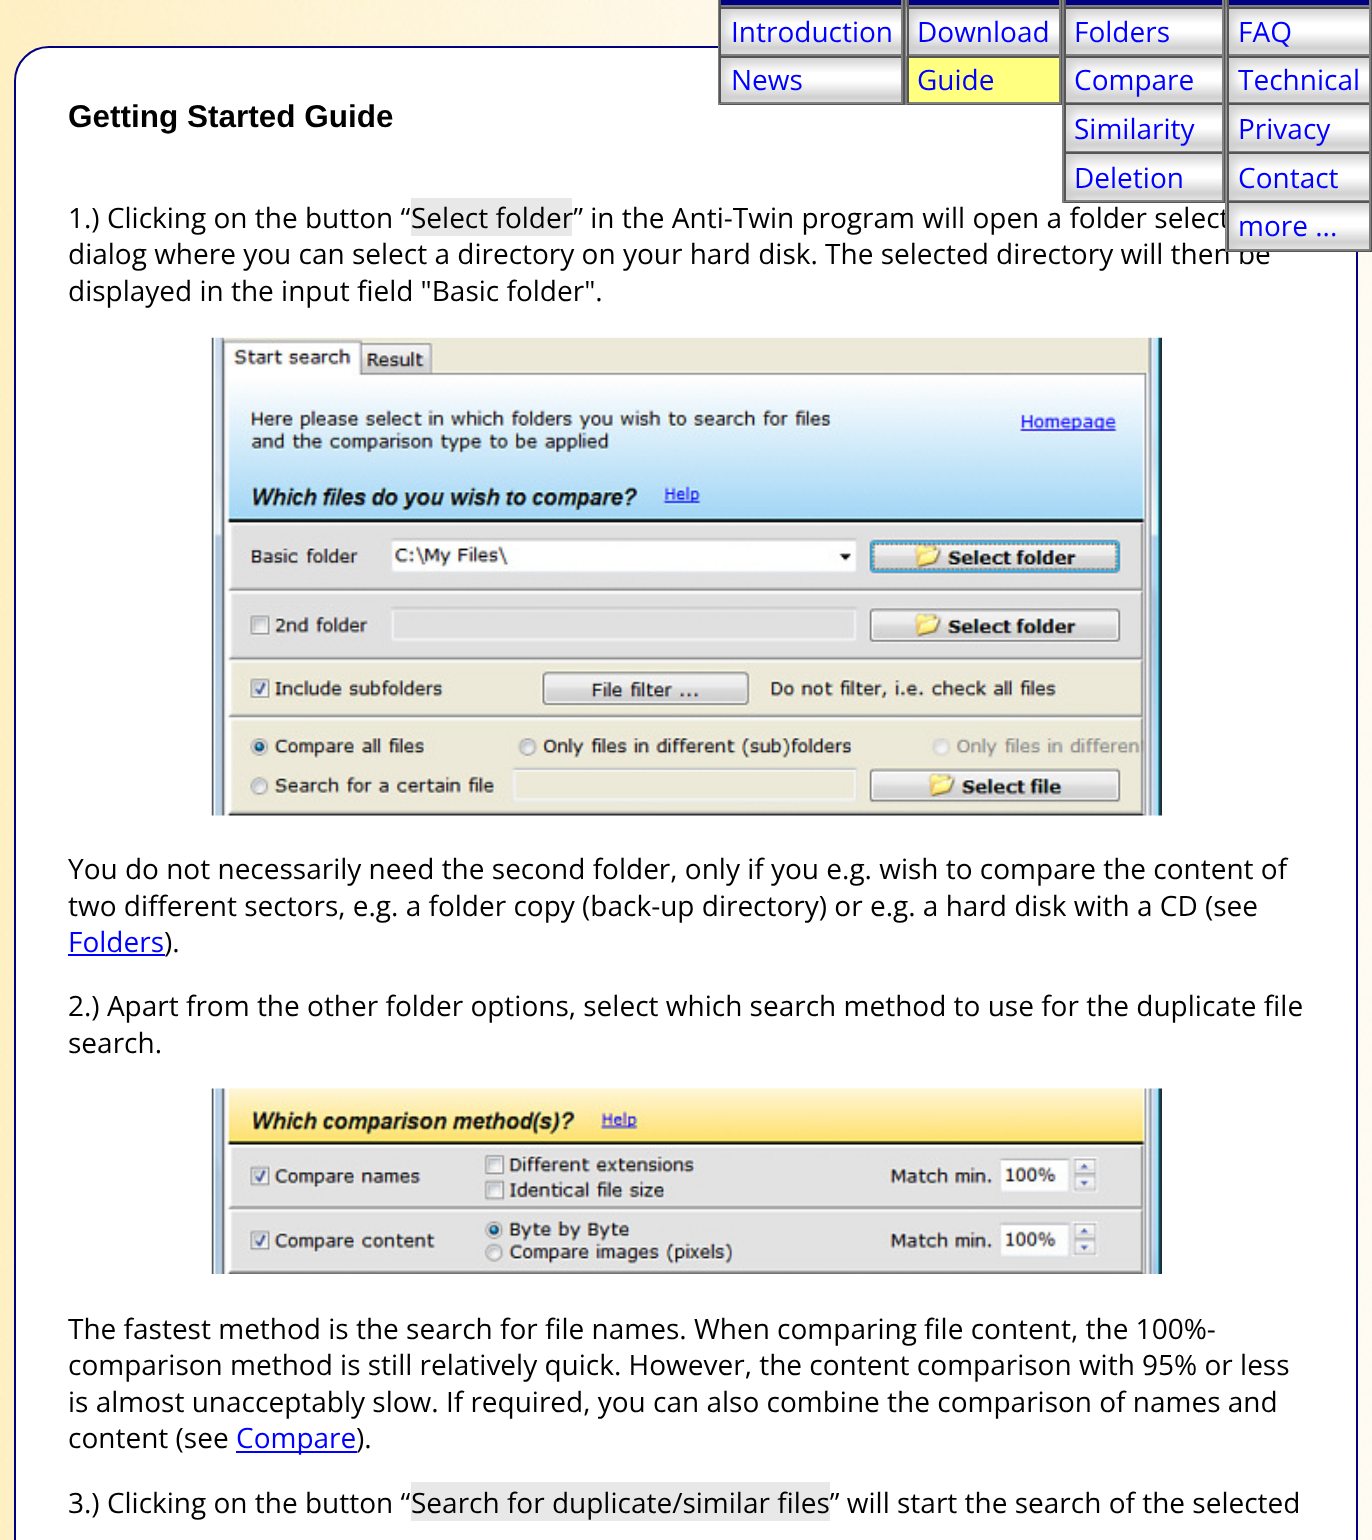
(async () => {
  const canvas = document.querySelector("canvas");
  canvas.width = 1372;
  canvas.height = 1540;
  const ctx = canvas.getContext("2d");
  ctx.miterLimit = 4;
  ctx.fontKerning = "normal";
  async function loadImage(src) {
    const img = new Image();
    img.src = src;
    await img.decode();
    return img;
  }

  ctx.fillStyle = "#ffffff";
  ctx.fillRect(0, 0, 1372, 1540);
  ctx.drawImage(await loadImage("img/1.png"), 0, 0, 1372, 1540);
  ctx.beginPath();
  ctx.roundRect(15, 47, 1342, 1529, 34);
  ctx.fill();
  ctx.strokeStyle = "#000080";
  ctx.lineWidth = 2;
  ctx.stroke();
  for (const [x, y, w, h, color] of [
    [903, 0, 2, 105, "#555555"],
    [718, 103, 187, 2, "#555555"],
    [718, 0, 2, 105, "#808080"],
    [719, 0, 184, 5, "#000080"],
    [901, 0, 2, 7, "#808080"],
    [719, 5, 184, 2, "#808080"],
    [719, 0, 2, 7, "#555555"],
  ]) {
    ctx.fillStyle = color;
    ctx.fillRect(x, y, w, h);
  }
  ctx.drawImage(await loadImage("img/2.png"), 721, 9, 180, 45);
  for (const [x, y, w, h, color] of [
    [719, 7, 184, 2, "#555555"],
    [901, 7, 2, 49, "#808080"],
    [719, 54, 184, 2, "#808080"],
    [719, 7, 2, 49, "#555555"],
  ]) {
    ctx.fillStyle = color;
    ctx.fillRect(x, y, w, h);
  }
  ctx.drawImage(await loadImage("img/3.png"), 721, 58, 180, 44);
  for (const [x, y, w, h, color] of [
    [719, 56, 184, 2, "#555555"],
    [901, 56, 2, 47, "#808080"],
    [719, 102, 184, 2, "#808080"],
    [719, 56, 2, 47, "#555555"],
    [1061, 0, 1, 105, "#555555"],
    [905, 103, 157, 2, "#555555"],
    [905, 0, 2, 105, "#808080"],
    [907, 0, 154, 5, "#000080"],
    [1059, 0, 2, 7, "#808080"],
    [907, 5, 154, 2, "#808080"],
    [907, 0, 2, 7, "#555555"],
  ]) {
    ctx.fillStyle = color;
    ctx.fillRect(x, y, w, h);
  }
  ctx.drawImage(await loadImage("img/4.png"), 906, 7, 153, 49);
  for (const [x, y, w, h, color] of [
    [907, 7, 154, 2, "#555555"],
    [1059, 7, 2, 49, "#808080"],
    [907, 54, 154, 2, "#808080"],
    [907, 7, 2, 49, "#555555"],
    [909, 58, 150, 44, "#ffff80"],
    [907, 56, 154, 2, "#555555"],
    [1059, 56, 2, 47, "#808080"],
    [907, 102, 154, 2, "#808080"],
    [907, 56, 2, 47, "#555555"],
    [1224, 0, 1, 203, "#555555"],
    [1062, 201, 163, 2, "#555555"],
    [1062, 0, 2, 203, "#808080"],
    [1064, 0, 159, 5, "#000080"],
    [1222, 0, 2, 7, "#808080"],
    [1064, 5, 159, 2, "#808080"],
    [1064, 0, 2, 7, "#555555"],
  ]) {
    ctx.fillStyle = color;
    ctx.fillRect(x, y, w, h);
  }
  ctx.drawImage(await loadImage("img/5.png"), 1066, 9, 156, 45);
  for (const [x, y, w, h, color] of [
    [1064, 7, 159, 2, "#555555"],
    [1222, 7, 2, 49, "#808080"],
    [1064, 54, 159, 2, "#808080"],
    [1064, 7, 2, 49, "#555555"],
  ]) {
    ctx.fillStyle = color;
    ctx.fillRect(x, y, w, h);
  }
  ctx.drawImage(await loadImage("img/6.png"), 1066, 58, 156, 44);
  for (const [x, y, w, h, color] of [
    [1064, 56, 159, 2, "#555555"],
    [1222, 56, 2, 47, "#808080"],
    [1064, 102, 159, 1, "#808080"],
    [1064, 56, 2, 47, "#555555"],
  ]) {
    ctx.fillStyle = color;
    ctx.fillRect(x, y, w, h);
  }
  ctx.drawImage(await loadImage("img/7.png"), 1066, 105, 156, 46);
  for (const [x, y, w, h, color] of [
    [1064, 103, 159, 2, "#555555"],
    [1222, 103, 2, 49, "#808080"],
    [1064, 151, 159, 1, "#808080"],
    [1064, 103, 2, 49, "#555555"],
  ]) {
    ctx.fillStyle = color;
    ctx.fillRect(x, y, w, h);
  }
  ctx.drawImage(await loadImage("img/8.png"), 1066, 154, 158, 48);
  for (const [x, y, w, h, color] of [
    [1064, 152, 159, 2, "#555555"],
    [1222, 152, 2, 49, "#808080"],
    [1064, 200, 159, 2, "#808080"],
    [1064, 152, 2, 49, "#555555"],
    [1371, 0, 1, 252, "#555555"],
    [1227, 0, 143, 5, "#000080"],
    [1369, 0, 2, 7, "#808080"],
    [1227, 5, 143, 2, "#808080"],
    [1227, 0, 2, 7, "#555555"],
    [411, 198, 161, 38, "#e8e8e8"],
  ]) {
    ctx.fillStyle = color;
    ctx.fillRect(x, y, w, h);
  }
  ctx.drawImage(await loadImage("img/13.png"), 211, 337, 951, 479);
  ctx.fillStyle = "#0000ff";
  ctx.fillRect(68, 954, 97, 2);
  ctx.drawImage(await loadImage("img/14.png"), 211, 1088, 951, 186);
  ctx.fillRect(236, 1451, 121, 2);
  ctx.fillStyle = "#e8e8e8";
  ctx.fillRect(411, 1482, 419, 39);
  ctx.font = "28px Open Sans";
  ctx.fillStyle = "#0000ff";
  for (const [text, x, y] of [
    ["Introduction", 731, 42],
    ["News", 731, 90],
    ["Download", 917, 42],
    ["Guide", 917, 90],
    ["Folders", 1074, 42],
    ["Compare", 1074, 90],
    ["Similarity", 1074, 139],
    ["Deletion", 1074, 188],
  ]) {
    ctx.fillText(text, x, y);
  }
  ctx.font = "bold 31.5px Liberation Sans";
  ctx.fillStyle = "#000000";
  ctx.fillText("Getting Started Guide", 68, 127);
  ctx.font = "28px Open Sans";
  for (const [text, x, y] of [
    ["1.) Clicking on the button “", 68, 228],
    ["Select folder” in the Anti-Twin program will open a folder select", 411, 228],
    ["dialog where you can select a directory on your hard disk. The selected directory will then be", 68, 264],
  ]) {
    ctx.fillText(text, x, y);
  }
  ctx.fillStyle = "#555555";
  ctx.fillRect(1225, 250, 147, 2);
  ctx.fillStyle = "#808080";
  ctx.fillRect(1225, 0, 2, 252);
  ctx.drawImage(await loadImage("img/10.png"), 1226, 56, 143, 48);
  ctx.drawImage(await loadImage("img/11.png"), 1226, 103, 143, 50);
  ctx.drawImage(await loadImage("img/11.png"), 1226, 152, 143, 50);
  ctx.drawImage(await loadImage("img/12.png"), 1226, 201, 145, 50);
  ctx.fillStyle = "#0000ff";
  for (const [text, x, y] of [
    ["more ...", 1238, 236],
    ["Contact", 1238, 188],
    ["Privacy", 1238, 139],
    ["Technical", 1238, 90],
  ]) {
    ctx.fillText(text, x, y);
  }
  ctx.drawImage(await loadImage("img/9.png"), 1226, 7, 143, 49);
  ctx.fillText("FAQ", 1238, 42);
  for (const [x, y, w, h, color] of [
    [1227, 201, 143, 2, "#555555"],
    [1369, 201, 2, 49, "#808080"],
    [1227, 249, 143, 2, "#808080"],
    [1227, 201, 2, 49, "#555555"],
    [1227, 152, 143, 2, "#555555"],
    [1369, 152, 2, 49, "#808080"],
    [1227, 200, 143, 1, "#808080"],
    [1227, 152, 2, 49, "#555555"],
    [1227, 103, 143, 2, "#555555"],
    [1369, 103, 2, 49, "#808080"],
    [1227, 151, 143, 1, "#808080"],
    [1227, 103, 2, 49, "#555555"],
    [1227, 56, 143, 2, "#555555"],
    [1369, 56, 2, 47, "#808080"],
    [1227, 102, 143, 1, "#808080"],
    [1227, 56, 2, 47, "#555555"],
    [1227, 7, 143, 2, "#555555"],
    [1369, 7, 2, 49, "#808080"],
    [1227, 54, 143, 2, "#808080"],
    [1227, 7, 2, 49, "#555555"],
  ]) {
    ctx.fillStyle = color;
    ctx.fillRect(x, y, w, h);
  }
  ctx.fillStyle = "#000000";
  for (const [text, x, y] of [
    ["displayed in the input field \"Basic folder\".", 68, 301],
    ["You do not necessarily need the second folder, only if you e.g. wish to compare the content of", 68, 879],
    ["two different sectors, e.g. a folder copy (back-up directory) or e.g. a hard disk with a CD (see", 68, 916],
  ]) {
    ctx.fillText(text, x, y);
  }
  ctx.fillStyle = "#0000ff";
  ctx.fillText("Folders", 68, 952);
  ctx.fillStyle = "#000000";
  for (const [text, x, y] of [
    [").", 164, 952],
    ["2.) Apart from the other folder options, select which search method to use for the duplicate file", 68, 1016],
    ["search.", 68, 1053],
    ["The fastest method is the search for file names. When comparing file content, the 100%-", 68, 1339],
    ["comparison method is still relatively quick. However, the content comparison with 95% or less", 68, 1375],
    ["is almost unacceptably slow. If required, you can also combine the comparison of names and", 68, 1412],
    ["content (see", 68, 1448],
  ]) {
    ctx.fillText(text, x, y);
  }
  ctx.fillStyle = "#0000ff";
  ctx.fillText("Compare", 236, 1448);
  ctx.fillStyle = "#000000";
  for (const [text, x, y] of [
    [").", 356, 1448],
    ["3.) Clicking on the button “", 68, 1513],
    ["Search for duplicate/similar files” will start the search of the selected", 411, 1513],
  ]) {
    ctx.fillText(text, x, y);
  }
})();
